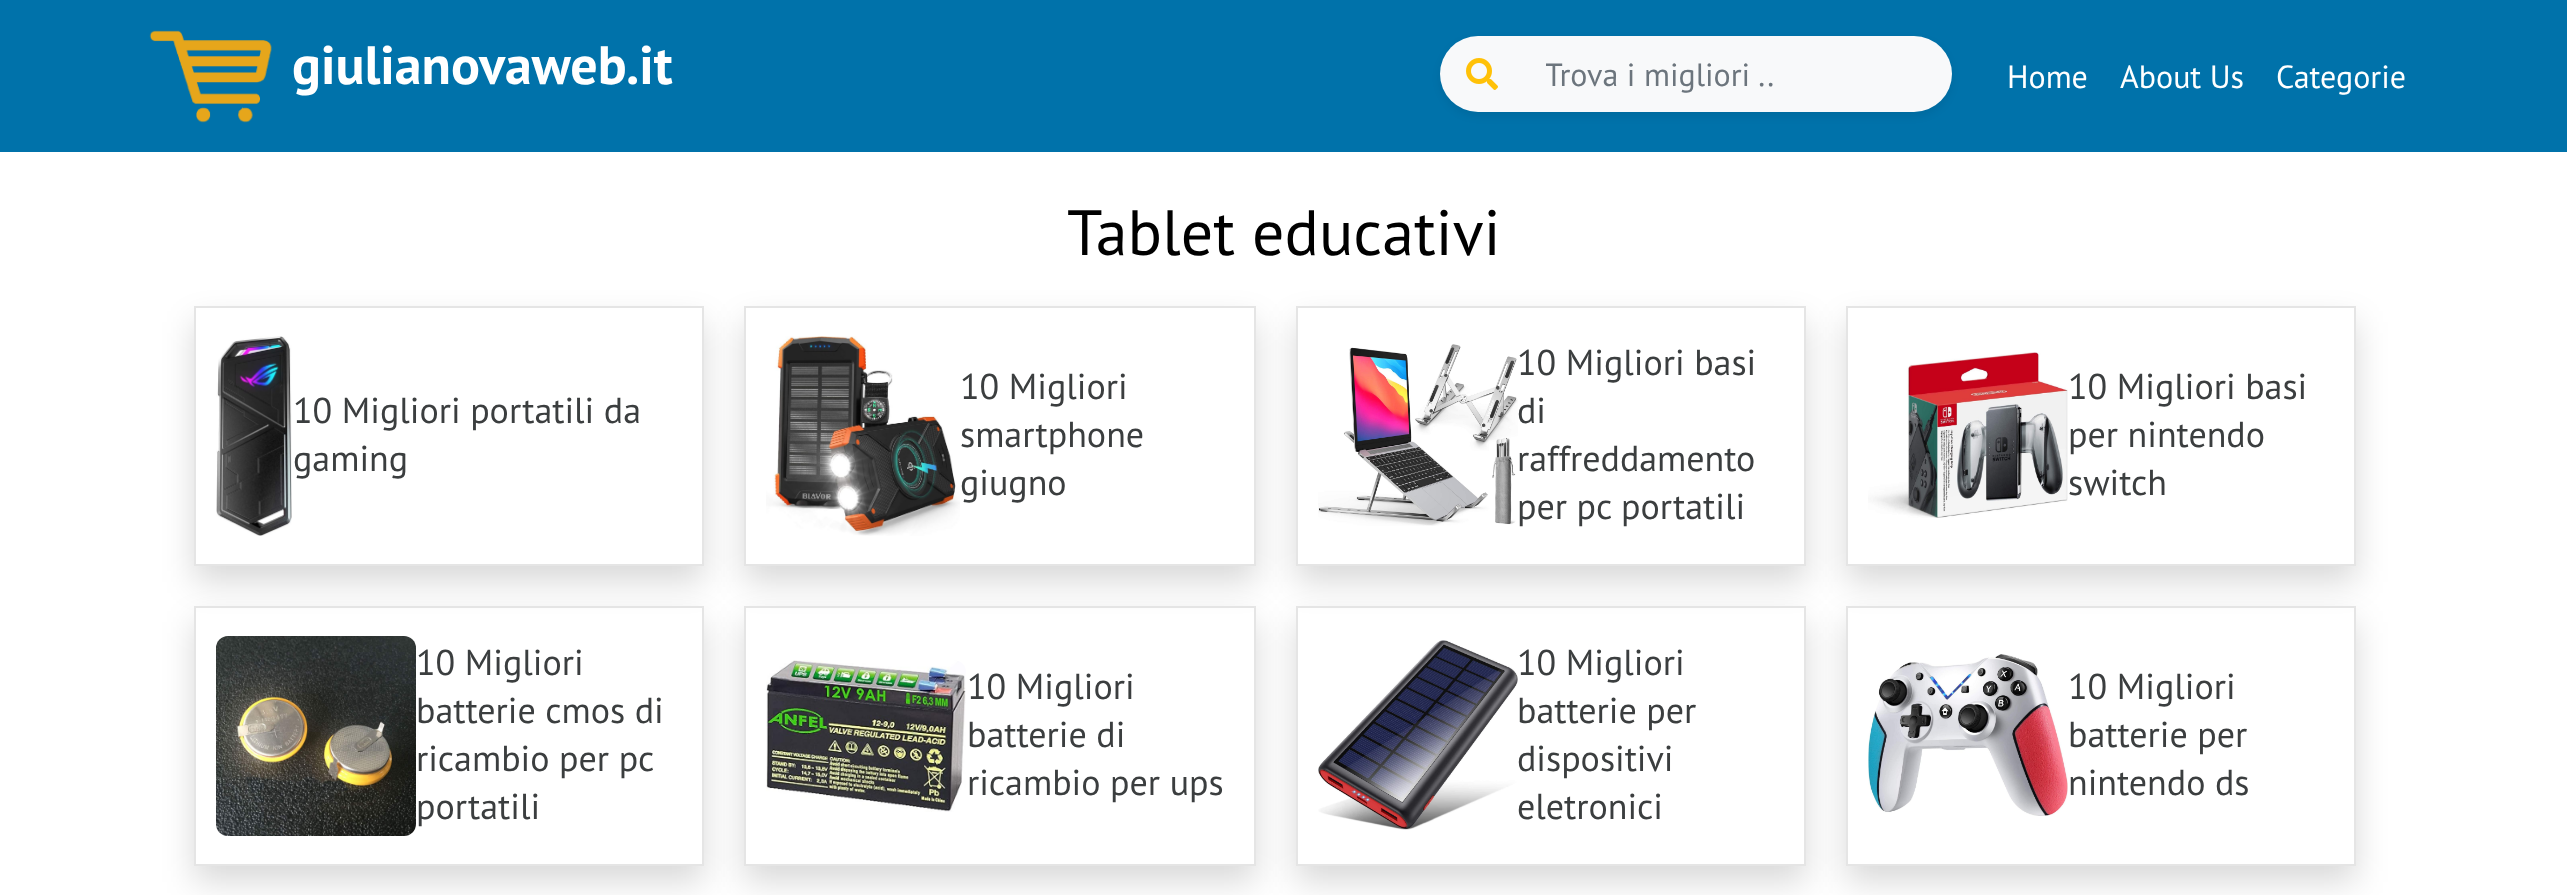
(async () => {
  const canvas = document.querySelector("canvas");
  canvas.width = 2567;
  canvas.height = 895;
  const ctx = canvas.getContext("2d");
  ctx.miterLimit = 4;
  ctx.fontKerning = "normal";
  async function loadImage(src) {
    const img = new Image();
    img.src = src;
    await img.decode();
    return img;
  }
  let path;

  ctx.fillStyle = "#ffffff";
  ctx.fillRect(0, 0, 2567, 895);
  ctx.fillStyle = "#0072aa";
  ctx.fillRect(0, 0, 2567, 152);
  ctx.drawImage(await loadImage("img/1.png"), 149, 30, 123, 93);
  ctx.fillStyle = "rgba(0, 0, 0, 0.07)";
  ctx.filter = "blur(4px)";
  ctx.beginPath();
  ctx.roundRect(1440, 40, 512, 76, 38);
  ctx.fill();
  ctx.filter = "none";
  ctx.fillStyle = "#f8f9fa";
  ctx.beginPath();
  ctx.roundRect(1440, 36, 512, 76, 38);
  ctx.fill();
  ctx.drawImage(await loadImage("img/2.png"), 1466, 58, 32, 32);
  ctx.save();
  path = new Path2D("M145 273H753V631H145ZM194 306H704V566H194Z");
  ctx.clip(path, "evenodd");
  ctx.fillStyle = "rgba(0, 0, 0, 0.15)";
  ctx.filter = "blur(16px)";
  ctx.beginPath();
  ctx.rect(194, 322, 510, 260);
  ctx.fill();
  ctx.filter = "none";
  ctx.restore();
  ctx.strokeStyle = "#e5e5e5";
  ctx.lineWidth = 2;
  ctx.strokeRect(195, 307, 508, 258);
  ctx.drawImage(await loadImage("img/3.png"), 216, 336, 76, 200);
  ctx.save();
  path = new Path2D("M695 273H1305V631H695ZM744 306H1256V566H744Z");
  ctx.clip(path, "evenodd");
  ctx.fillStyle = "rgba(0, 0, 0, 0.15)";
  ctx.filter = "blur(16px)";
  ctx.beginPath();
  ctx.rect(744, 322, 512, 260);
  ctx.fill();
  ctx.filter = "none";
  ctx.restore();
  ctx.strokeRect(745, 307, 510, 258);
  ctx.drawImage(await loadImage("img/4.png"), 766, 336, 194, 200);
  ctx.save();
  path = new Path2D("M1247 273H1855V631H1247ZM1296 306H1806V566H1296Z");
  ctx.clip(path, "evenodd");
  ctx.fillStyle = "rgba(0, 0, 0, 0.15)";
  ctx.filter = "blur(16px)";
  ctx.beginPath();
  ctx.rect(1296, 322, 510, 260);
  ctx.fill();
  ctx.filter = "none";
  ctx.restore();
  ctx.strokeRect(1297, 307, 508, 258);
  ctx.drawImage(await loadImage("img/5.png"), 1318, 344, 200, 182);
  ctx.save();
  path = new Path2D("M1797 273H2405V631H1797ZM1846 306H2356V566H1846Z");
  ctx.clip(path, "evenodd");
  ctx.fillStyle = "rgba(0, 0, 0, 0.15)";
  ctx.filter = "blur(16px)";
  ctx.beginPath();
  ctx.rect(1846, 322, 510, 260);
  ctx.fill();
  ctx.filter = "none";
  ctx.restore();
  ctx.strokeRect(1847, 307, 508, 258);
  ctx.drawImage(await loadImage("img/6.png"), 1868, 352, 200, 166);
  ctx.save();
  path = new Path2D("M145 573H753V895H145ZM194 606H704V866H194Z");
  ctx.clip(path, "evenodd");
  ctx.fillStyle = "rgba(0, 0, 0, 0.15)";
  ctx.filter = "blur(16px)";
  ctx.beginPath();
  ctx.rect(194, 622, 510, 260);
  ctx.fill();
  ctx.filter = "none";
  ctx.restore();
  ctx.strokeRect(195, 607, 508, 258);
  ctx.drawImage(await loadImage("img/7.png"), 216, 636, 200, 200);
  ctx.save();
  path = new Path2D("M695 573H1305V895H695ZM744 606H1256V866H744Z");
  ctx.clip(path, "evenodd");
  ctx.fillStyle = "rgba(0, 0, 0, 0.15)";
  ctx.filter = "blur(16px)";
  ctx.beginPath();
  ctx.rect(744, 622, 512, 260);
  ctx.fill();
  ctx.filter = "none";
  ctx.restore();
  ctx.strokeRect(745, 607, 510, 258);
  ctx.drawImage(await loadImage("img/8.png"), 766, 660, 200, 152);
  ctx.save();
  path = new Path2D("M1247 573H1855V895H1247ZM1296 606H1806V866H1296Z");
  ctx.clip(path, "evenodd");
  ctx.fillStyle = "rgba(0, 0, 0, 0.15)";
  ctx.filter = "blur(16px)";
  ctx.beginPath();
  ctx.rect(1296, 622, 510, 260);
  ctx.fill();
  ctx.filter = "none";
  ctx.restore();
  ctx.strokeRect(1297, 607, 508, 258);
  ctx.drawImage(await loadImage("img/9.png"), 1318, 640, 200, 190);
  ctx.save();
  path = new Path2D("M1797 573H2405V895H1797ZM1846 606H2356V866H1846Z");
  ctx.clip(path, "evenodd");
  ctx.fillStyle = "rgba(0, 0, 0, 0.15)";
  ctx.filter = "blur(16px)";
  ctx.beginPath();
  ctx.rect(1846, 622, 510, 260);
  ctx.fill();
  ctx.filter = "none";
  ctx.restore();
  ctx.strokeRect(1847, 607, 508, 258);
  ctx.drawImage(await loadImage("img/10.png"), 1868, 654, 200, 162);
  ctx.font = "bold 54px PT Sans";
  ctx.fillStyle = "#ffffff";
  ctx.fillText("giulianovaweb.it", 292, 84);
  ctx.save();
  ctx.beginPath();
  ctx.rect(1546, 54, 312, 40);
  ctx.clip();
  ctx.font = "32px PT Sans";
  ctx.fillStyle = "#6c757d";
  ctx.fillText("Trova i migliori ..", 1545, 86);
  ctx.restore();
  ctx.font = "32px PT Sans";
  for (const [text, x, y] of [
    ["Home", 2007, 88],
    ["About Us", 2120, 88],
    ["Categorie", 2276, 88],
  ]) {
    ctx.fillText(text, x, y);
  }
  ctx.font = "64px PT Sans";
  ctx.fillStyle = "#000000";
  ctx.fillText("Tablet educativi", 1067, 255);
  ctx.font = "36px PT Sans";
  ctx.fillStyle = "#3b3e3f";
  for (const [text, x, y] of [
    ["10 Migliori portatili da", 293, 423],
    ["gaming", 293, 471],
    ["10 Migliori", 960, 399],
    ["smartphone", 960, 447],
    ["giugno", 960, 495],
    ["10 Migliori basi", 1517, 375],
    ["di", 1517, 423],
    ["raffreddamento", 1517, 471],
    ["per pc portatili", 1517, 519],
    ["10 Migliori basi", 2068, 399],
    ["per nintendo", 2068, 447],
    ["switch", 2068, 495],
    ["10 Migliori", 416, 675],
    ["batterie cmos di", 416, 723],
    ["ricambio per pc", 416, 771],
    ["portatili", 416, 819],
    ["10 Migliori", 967, 699],
    ["batterie di", 967, 747],
    ["ricambio per ups", 967, 795],
    ["10 Migliori", 1517, 675],
    ["batterie per", 1517, 723],
    ["dispositivi", 1517, 771],
    ["eletronici", 1517, 819],
    ["10 Migliori", 2068, 699],
    ["batterie per", 2068, 747],
    ["nintendo ds", 2068, 795],
  ]) {
    ctx.fillText(text, x, y);
  }
})();
